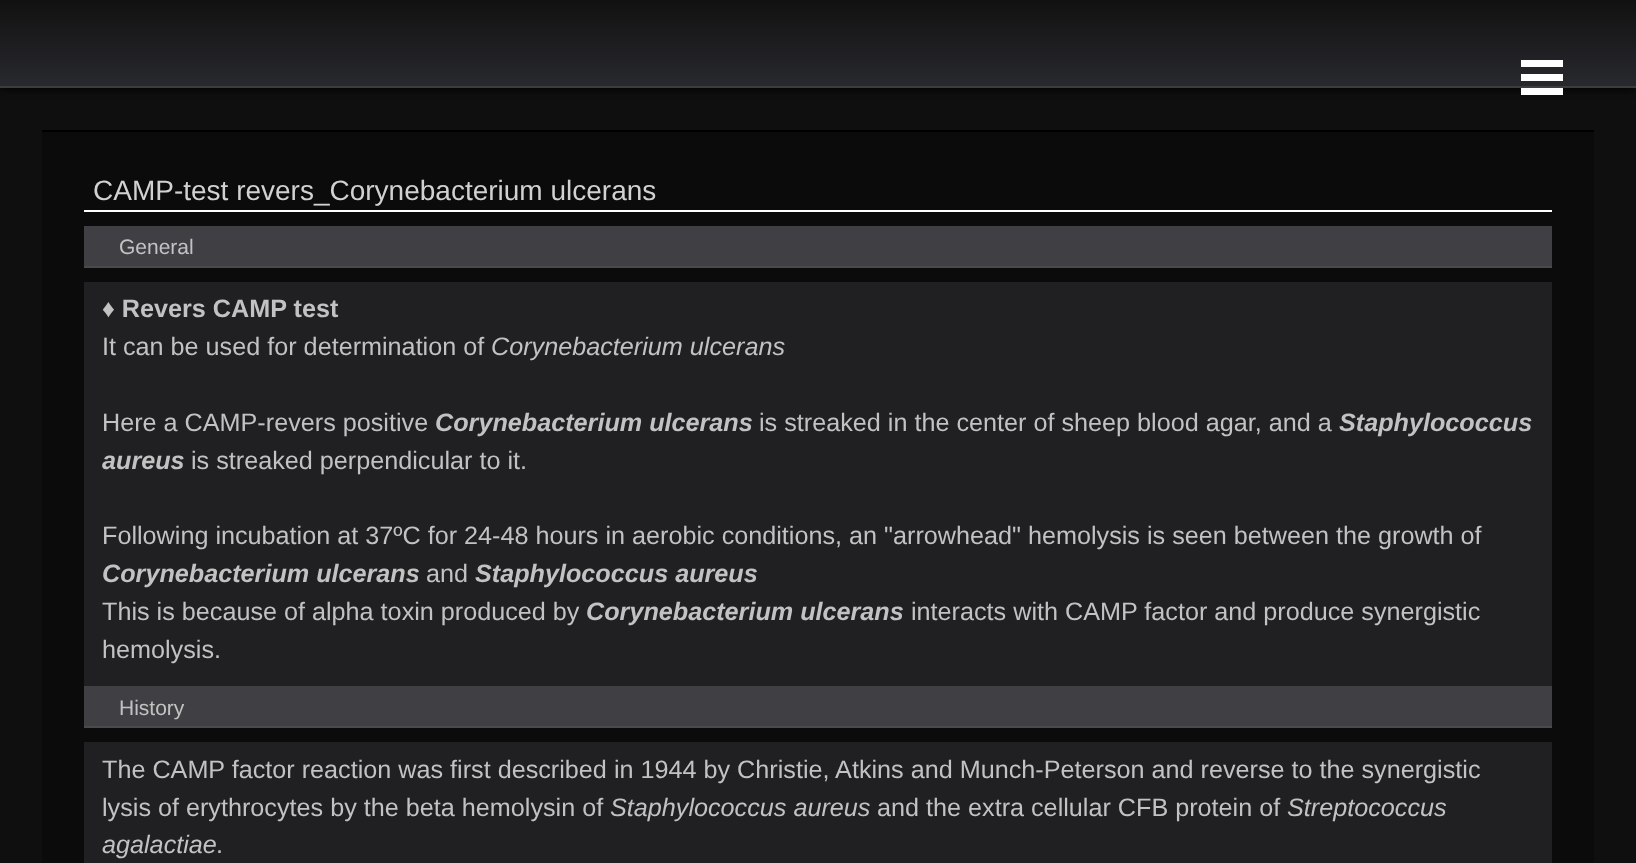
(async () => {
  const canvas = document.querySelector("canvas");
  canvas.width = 1636;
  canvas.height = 863;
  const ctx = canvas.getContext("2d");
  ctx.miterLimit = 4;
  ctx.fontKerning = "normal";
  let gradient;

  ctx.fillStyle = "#0f0f0f";
  ctx.fillRect(0, 0, 1636, 863);
  ctx.fillStyle = "#000000";
  ctx.filter = "blur(4.5px)";
  ctx.beginPath();
  ctx.rect(0, 2, 1636, 87);
  ctx.fill();
  ctx.filter = "none";
  gradient = ctx.createLinearGradient(818, 0, 818, 86);
  gradient.addColorStop(0, "#111111");
  gradient.addColorStop(1, "#28292e");
  ctx.fillStyle = gradient;
  ctx.fillRect(0, 0, 1636, 86);
  for (const [x, y, w, h, color] of [
    [0, 86, 1636, 2, "#3d3d3d"],
    [1521, 74, 42, 7, "#ffffff"],
    [1521, 60, 42, 7, "#ffffff"],
    [1521, 88, 42, 7, "#ffffff"],
    [42, 132, 1552, 731, "#0b0b0b"],
    [42, 130, 1552, 2, "#000000"],
    [84, 210, 1468, 2, "#ffffff"],
    [84, 226, 1468, 40, "#404044"],
    [84, 266, 1468, 2, "#4a4a4d"],
    [84, 282, 1468, 404, "#202022"],
    [84, 686, 1468, 40, "#404044"],
    [84, 726, 1468, 2, "#4a4a4d"],
    [84, 742, 1468, 121, "#202022"],
  ]) {
    ctx.fillStyle = color;
    ctx.fillRect(x, y, w, h);
  }
  ctx.font = "28px Liberation Sans";
  ctx.fillStyle = "#d1d1d1";
  ctx.fillText("CAMP-test revers_Corynebacterium ulcerans", 93, 200);
  ctx.font = "21px Liberation Sans";
  ctx.fillStyle = "#c2c2c2";
  ctx.fillText("General", 119, 254);
  ctx.font = "bold 25.2px Liberation Sans";
  ctx.fillText("♦ Revers CAMP test", 102, 317);
  ctx.font = "25.2px Liberation Sans";
  ctx.fillText("It can be used for determination of", 102, 355);
  ctx.font = "italic 25.2px Liberation Sans";
  ctx.fillText("Corynebacterium ulcerans", 491, 355);
  ctx.font = "25.2px Liberation Sans";
  ctx.fillText("Here a CAMP-revers positive", 102, 431);
  ctx.font = "italic bold 25.2px Liberation Sans";
  ctx.fillText("Corynebacterium ulcerans", 435, 431);
  ctx.font = "25.2px Liberation Sans";
  ctx.fillText("is streaked in the center of sheep blood agar, and a", 759, 431);
  ctx.font = "italic bold 25.2px Liberation Sans";
  ctx.fillText("Staphylococcus", 1339, 431);
  ctx.fillText("aureus", 102, 469);
  ctx.font = "25.2px Liberation Sans";
  ctx.fillText("is streaked perpendicular to it.", 191, 469);
  ctx.fillText("Following incubation at 37ºC for 24-48 hours in aerobic conditions, an \"arrowhead\" hemolysis is seen between the growth of", 102, 544);
  ctx.font = "italic bold 25.2px Liberation Sans";
  ctx.fillText("Corynebacterium ulcerans", 102, 582);
  ctx.font = "25.2px Liberation Sans";
  ctx.fillText("and", 426, 582);
  ctx.font = "italic bold 25.2px Liberation Sans";
  ctx.fillText("Staphylococcus aureus", 475, 582);
  ctx.font = "25.2px Liberation Sans";
  ctx.fillText("This is because of alpha toxin produced by", 102, 620);
  ctx.font = "italic bold 25.2px Liberation Sans";
  ctx.fillText("Corynebacterium ulcerans", 586, 620);
  ctx.font = "25.2px Liberation Sans";
  ctx.fillText("interacts with CAMP factor and produce synergistic", 911, 620);
  ctx.fillText("hemolysis.", 102, 658);
  ctx.font = "21px Liberation Sans";
  ctx.fillText("History", 119, 715);
  ctx.font = "25.2px Liberation Sans";
  ctx.fillText("The CAMP factor reaction was first described in 1944 by Christie, Atkins and Munch-Peterson and reverse to the synergistic", 102, 778);
  ctx.fillText("lysis of erythrocytes by the beta hemolysin of", 102, 816);
  ctx.font = "italic 25.2px Liberation Sans";
  ctx.fillText("Staphylococcus aureus", 610, 816);
  ctx.font = "25.2px Liberation Sans";
  ctx.fillText("and the extra cellular CFB protein of", 877, 816);
  ctx.font = "italic 25.2px Liberation Sans";
  ctx.fillText("Streptococcus", 1287, 816);
  ctx.fillText("agalactiae", 102, 853);
  ctx.font = "25.2px Liberation Sans";
  ctx.fillText(".", 216, 853);
})();
